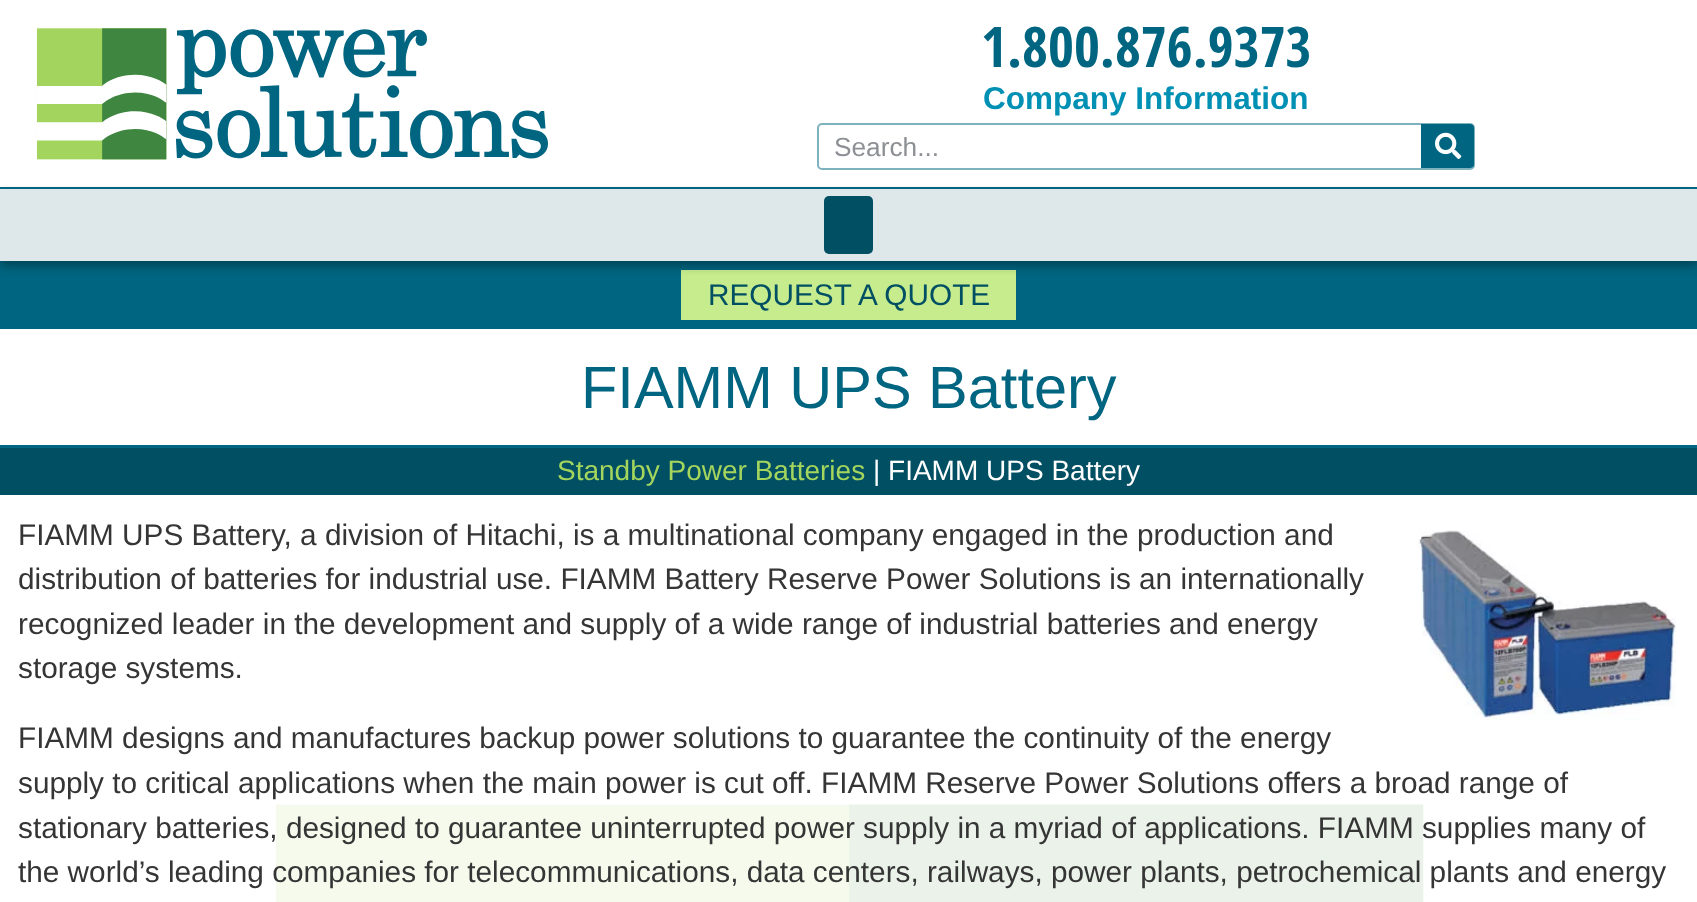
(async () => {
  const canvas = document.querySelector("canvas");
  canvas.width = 1697;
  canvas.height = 902;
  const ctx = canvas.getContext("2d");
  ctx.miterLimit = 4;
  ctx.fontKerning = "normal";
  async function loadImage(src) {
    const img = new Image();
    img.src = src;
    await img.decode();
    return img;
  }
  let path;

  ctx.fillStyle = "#ffffff";
  ctx.fillRect(0, 0, 1697, 902);
  ctx.drawImage(await loadImage("img/1.png"), 36, 28, 512, 132);
  ctx.beginPath();
  ctx.roundRect(818, 124, 656, 45, 4);
  ctx.strokeStyle = "#7fb2bf";
  ctx.lineWidth = 2;
  ctx.stroke();
  ctx.fillStyle = "#006580";
  ctx.beginPath();
  ctx.roundRect(1421, 124, 53, 44, [0, 4, 4, 0]);
  ctx.fill();
  ctx.drawImage(await loadImage("img/2.png"), 1435, 132, 27, 27);
  ctx.fillStyle = "rgba(0, 0, 0, 0.32)";
  ctx.filter = "blur(5px)";
  ctx.beginPath();
  ctx.rect(0, 266, 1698, 68);
  ctx.fill();
  ctx.filter = "none";
  ctx.fillStyle = "#006580";
  ctx.fillRect(0, 261, 1697, 68);
  ctx.fillStyle = "#c6ec8d";
  ctx.fillRect(681, 270, 335, 50);
  ctx.save();
  path = new Path2D("M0 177H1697V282H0ZM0 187H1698V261H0Z");
  ctx.clip(path, "evenodd");
  ctx.fillStyle = "rgba(0, 0, 0, 0.32)";
  ctx.filter = "blur(5px)";
  ctx.beginPath();
  ctx.rect(0, 193, 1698, 73);
  ctx.fill();
  ctx.filter = "none";
  ctx.restore();
  ctx.fillStyle = "rgba(219, 229, 231, 0.93)";
  ctx.fillRect(0, 189, 1697, 72);
  ctx.fillStyle = "#006580";
  ctx.fillRect(0, 187, 1697, 2);
  ctx.fillStyle = "#004f63";
  ctx.beginPath();
  ctx.roundRect(824, 196, 49, 58, 5);
  ctx.fill();
  for (const [x, y, w, h, color] of [
    [0, 329, 1697, 14, "#ffffff"],
    [0, 445, 1697, 3, "#006580"],
    [0, 448, 1697, 47, "#004f63"],
  ]) {
    ctx.fillStyle = color;
    ctx.fillRect(x, y, w, h);
  }
  ctx.drawImage(await loadImage("img/3.png"), 276, 804, 1148, 98);
  ctx.drawImage(await loadImage("img/4.png"), 1417, 530, 259, 190);
  ctx.font = "bold 56px Open Sans Condensed";
  ctx.fillStyle = "#006580";
  ctx.fillText("1.800.876.9373", 981, 67);
  ctx.font = "bold 31.5px Liberation Sans";
  ctx.fillStyle = "#0090b4";
  ctx.fillText("Company Information", 983, 109);
  ctx.font = "26.25px Liberation Sans";
  ctx.fillStyle = "#8c8f93";
  ctx.fillText("Search...", 834, 156);
  ctx.font = "29.75px Liberation Sans";
  ctx.fillStyle = "#004f63";
  ctx.fillText("REQUEST A QUOTE", 708, 305);
  ctx.font = "59.5px Liberation Sans";
  ctx.fillStyle = "#006580";
  ctx.fillText("FIAMM UPS Battery", 581, 408);
  ctx.font = "28px Liberation Sans";
  ctx.fillStyle = "#a4d55d";
  ctx.fillText("Standby Power Batteries", 557, 480);
  ctx.fillStyle = "#ffffff";
  ctx.fillText("| FIAMM UPS Battery", 873, 480);
  ctx.font = "29.75px Liberation Sans";
  ctx.fillStyle = "#353535";
  for (const [text, x, y] of [
    ["FIAMM UPS Battery, a division of Hitachi, is a multinational company engaged in the production and", 18, 545],
    ["distribution of batteries for industrial use. FIAMM Battery Reserve Power Solutions is an internationally", 18, 589],
    ["recognized leader in the development and supply of a wide range of industrial batteries and energy", 18, 634],
    ["storage systems.", 18, 678],
    ["FIAMM designs and manufactures backup power solutions to guarantee the continuity of the energy", 18, 748],
    ["supply to critical applications when the main power is cut off. FIAMM Reserve Power Solutions offers a broad range of", 18, 793],
    ["stationary batteries, designed to guarantee uninterrupted power supply in a myriad of applications. FIAMM supplies many of", 18, 838],
    ["the world’s leading companies for telecommunications, data centers, railways, power plants, petrochemical plants and energy", 18, 882],
  ]) {
    ctx.fillText(text, x, y);
  }
})();
